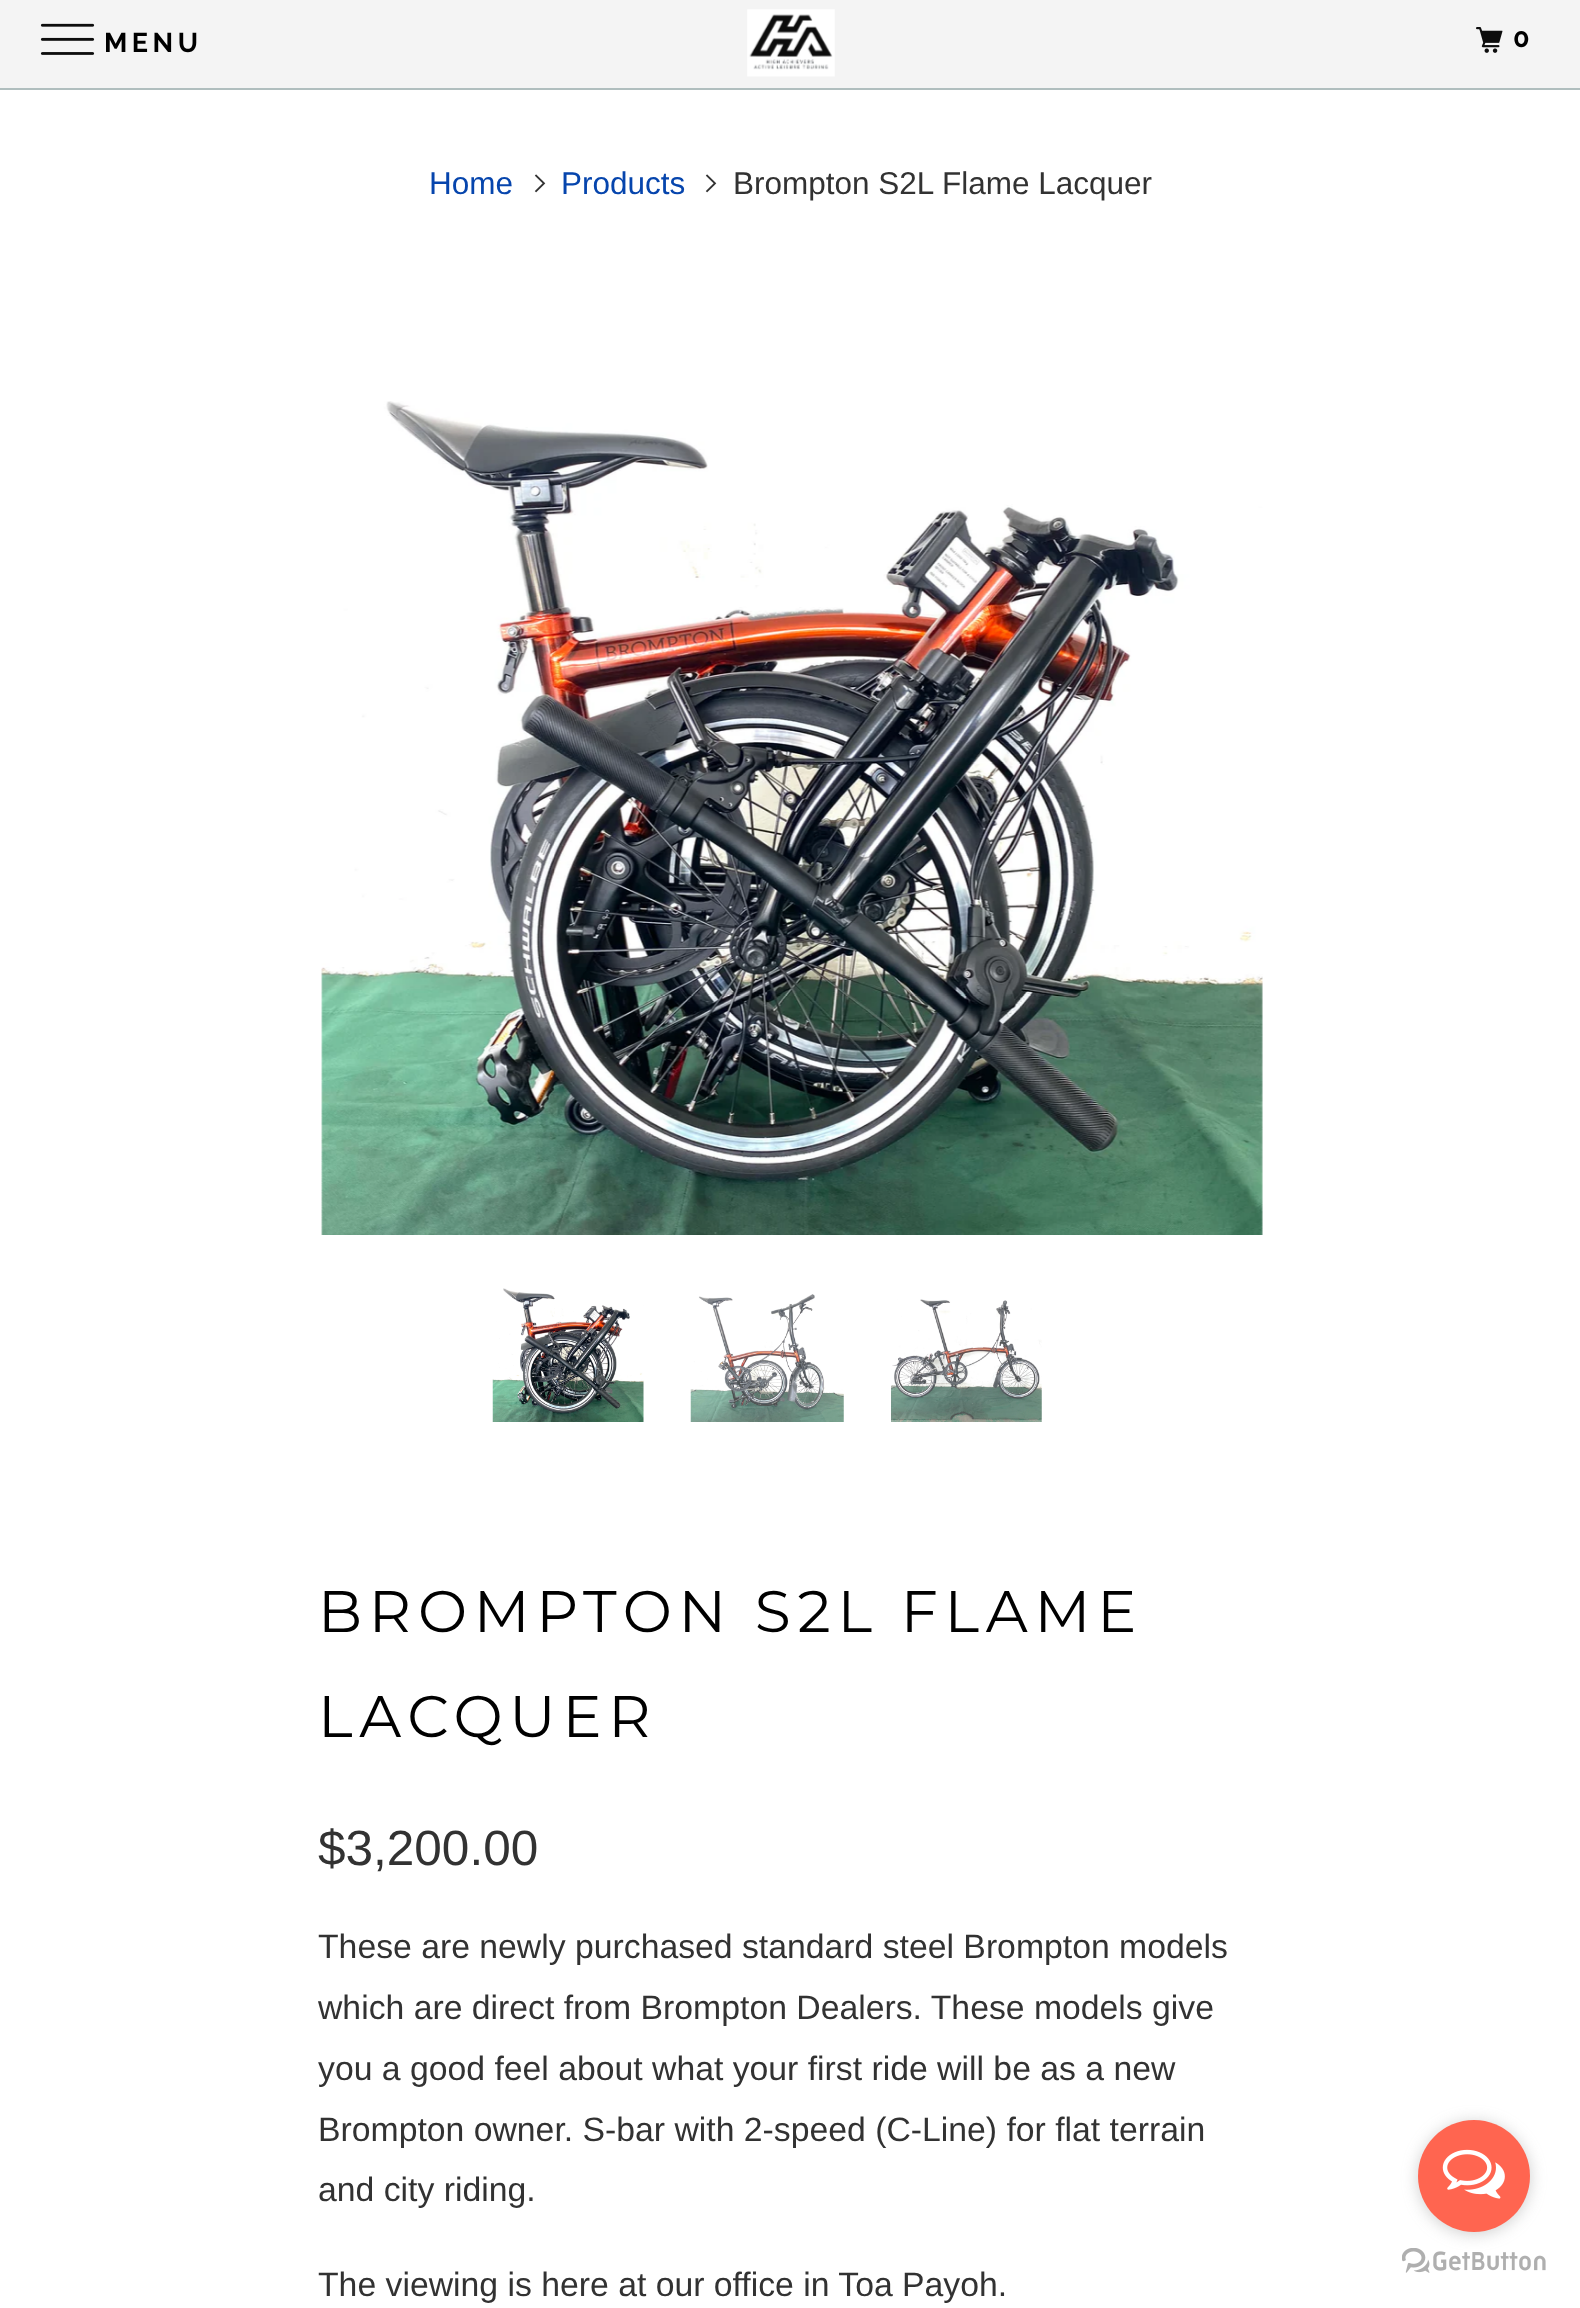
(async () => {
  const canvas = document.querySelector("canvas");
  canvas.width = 1580;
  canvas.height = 2308;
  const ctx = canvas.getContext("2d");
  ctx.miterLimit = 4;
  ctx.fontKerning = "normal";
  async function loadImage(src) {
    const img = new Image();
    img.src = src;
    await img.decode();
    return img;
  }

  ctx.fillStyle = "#ffffff";
  ctx.fillRect(0, 0, 1580, 2308);
  ctx.fillStyle = "#f4f4f4";
  ctx.fillRect(0, 0, 1580, 88);
  ctx.fillStyle = "#b0bebe";
  ctx.fillRect(0, 88, 1580, 2);
  ctx.drawImage(await loadImage("img/1.png"), 40, 23, 55, 32);
  ctx.drawImage(await loadImage("img/2.png"), 747, 9, 88, 68);
  ctx.drawImage(await loadImage("img/3.png"), 1476, 27, 27, 26);
  ctx.drawImage(await loadImage("img/4.png"), 534, 174, 12, 19);
  ctx.drawImage(await loadImage("img/4.png"), 705, 174, 12, 19);
  ctx.drawImage(await loadImage("img/5.png"), 321, 401, 942, 834);
  ctx.drawImage(await loadImage("img/6.png"), 492, 1288, 152, 134);
  ctx.drawImage(await loadImage("img/7.png"), 690, 1294, 154, 128);
  ctx.drawImage(await loadImage("img/8.png"), 891, 1299, 151, 123);
  ctx.drawImage(await loadImage("img/10.png"), 1402, 2248, 144, 25);
  ctx.fillStyle = "rgba(136, 136, 136, 0.4)";
  ctx.filter = "blur(8px)";
  ctx.beginPath();
  ctx.roundRect(1418, 2122, 112, 112, 56);
  ctx.fill();
  ctx.filter = "none";
  ctx.fillStyle = "#ff6550";
  ctx.beginPath();
  ctx.arc(1474, 2176, 56, 0, Math.PI * 2);
  ctx.fill();
  ctx.drawImage(await loadImage("img/9.png"), 1442, 2149, 63, 50);
  ctx.letterSpacing = "4.5px";
  ctx.font = "bold 27px Raleway";
  ctx.fillStyle = "#000000";
  ctx.fillText("MENU", 104, 52);
  ctx.fillText("0", 1513, 47);
  ctx.letterSpacing = "0px";
  ctx.font = "31.5px Liberation Sans";
  ctx.fillStyle = "#0645ad";
  ctx.fillText("Home", 429, 194);
  ctx.fillText("Products", 561, 194);
  ctx.fillStyle = "#323232";
  ctx.fillText("Brompton S2L Flame Lacquer", 733, 194);
  ctx.letterSpacing = "6.75px";
  ctx.font = "58.5px Montserrat";
  ctx.fillStyle = "#000000";
  ctx.fillText("BROMPTON S2L FLAME", 318, 1632);
  ctx.fillText("LACQUER", 318, 1737);
  ctx.letterSpacing = "0px";
  ctx.font = "49.5px Liberation Sans";
  ctx.fillStyle = "#323232";
  ctx.fillText("$3,200.00", 318, 1865);
  ctx.font = "33.75px Liberation Sans";
  for (const [text, x, y] of [
    ["These are newly purchased standard steel Brompton models", 318, 1958],
    ["which are direct from Brompton Dealers. These models give", 318, 2019],
    ["you a good feel about what your first ride will be as a new", 318, 2080],
    ["Brompton owner. S-bar with 2-speed (C-Line) for flat terrain", 318, 2141],
    ["and city riding.", 318, 2201],
    ["The viewing is here at our office in Toa Payoh.", 318, 2296],
  ]) {
    ctx.fillText(text, x, y);
  }
})();
